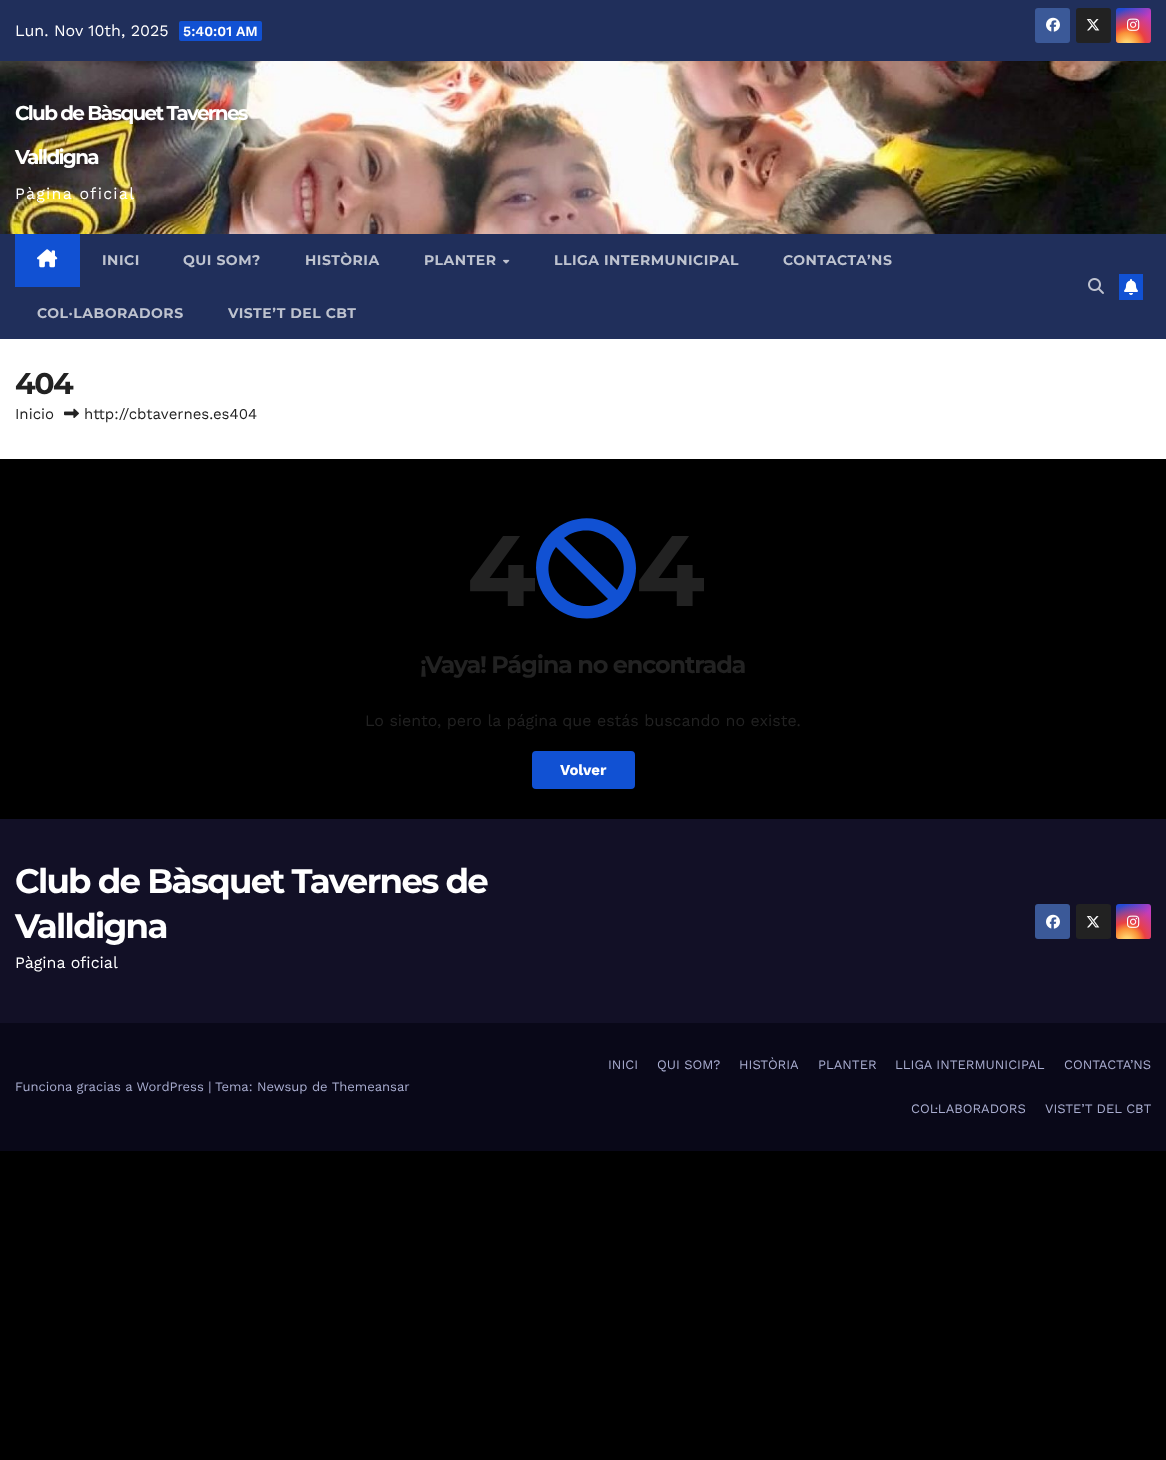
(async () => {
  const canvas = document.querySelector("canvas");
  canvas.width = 1166;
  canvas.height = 1460;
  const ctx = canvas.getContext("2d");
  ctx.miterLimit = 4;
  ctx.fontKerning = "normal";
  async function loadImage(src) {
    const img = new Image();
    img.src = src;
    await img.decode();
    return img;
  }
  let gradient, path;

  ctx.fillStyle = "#000000";
  ctx.fillRect(0, 0, 1166, 1460);
  ctx.fillStyle = "#202f5b";
  ctx.fillRect(0, 0, 1166, 61);
  ctx.fillStyle = "#1151d3";
  ctx.beginPath();
  ctx.roundRect(179, 21, 83, 20, 2);
  ctx.fill();
  ctx.fillStyle = "#3b5998";
  ctx.beginPath();
  ctx.roundRect(1035, 8, 35, 35, 3);
  ctx.fill();
  ctx.drawImage(await loadImage("img/1.png"), 1046, 17, 14, 15);
  ctx.fillStyle = "#222222";
  ctx.beginPath();
  ctx.roundRect(1076, 8, 35, 35, 3);
  ctx.fill();
  ctx.drawImage(await loadImage("img/2.png"), 1086, 19, 14, 12);
  gradient = ctx.createLinearGradient(1116, 8, 1151, 43);
  gradient.addColorStop(0.12, "#234bd7");
  gradient.addColorStop(0.58, "#c33cbe");
  ctx.fillStyle = gradient;
  ctx.beginPath();
  ctx.roundRect(1116, 8, 35, 35, 3);
  ctx.fill();
  gradient = ctx.createRadialGradient(1127, 45, 0, 1127, 45, 44);
  gradient.addColorStop(0, "#ffe17d");
  gradient.addColorStop(0.1, "#ffcd69");
  gradient.addColorStop(0.28, "#fa9137");
  gradient.addColorStop(0.42, "#eb4141");
  gradient.addColorStop(0.82, "rgba(235, 65, 65, 0)");
  ctx.fillStyle = gradient;
  ctx.beginPath();
  ctx.roundRect(1116, 8, 35, 35, 3);
  ctx.fill();
  ctx.drawImage(await loadImage("img/3.png"), 1127, 18, 13, 13);
  ctx.drawImage(await loadImage("img/4.png"), 0, 61, 1166, 173);
  ctx.fillStyle = "#202f5b";
  ctx.fillRect(0, 234, 1166, 105);
  ctx.fillStyle = "#1151d3";
  ctx.fillRect(15, 234, 65, 53);
  ctx.drawImage(await loadImage("img/5.png"), 37, 249, 21, 19);
  ctx.drawImage(await loadImage("img/6.png"), 503, 259, 7, 5);
  ctx.drawImage(await loadImage("img/7.png"), 1088, 278, 16, 16);
  ctx.fillRect(1119, 274, 24, 26);
  ctx.drawImage(await loadImage("img/8.png"), 1124, 279, 14, 16);
  ctx.fillStyle = "#ffffff";
  ctx.fillRect(0, 339, 1166, 120);
  ctx.drawImage(await loadImage("img/9.png"), 64, 408, 15, 10);
  ctx.fillStyle = "#1151d3";
  path = new Path2D("M608 599L556 547C531 581 574 623 608 599ZM617 590C641 556 598 513 564 538ZM536 568C537 521 596 500 626 538C632 547 636 558 636 568C636 579 632 590 626 599C596 637 537 616 536 568Z");
  ctx.fill(path);
  ctx.beginPath();
  ctx.roundRect(533, 752, 101, 36, 3);
  ctx.fill();
  ctx.strokeStyle = "#1151d3";
  ctx.lineWidth = 2;
  ctx.stroke();
  ctx.fillStyle = "#121026";
  ctx.fillRect(0, 819, 1166, 204);
  ctx.fillStyle = "#3b5998";
  ctx.beginPath();
  ctx.roundRect(1035, 904, 35, 35, 3);
  ctx.fill();
  ctx.drawImage(await loadImage("img/1.png"), 1046, 914, 14, 15);
  ctx.fillStyle = "#222222";
  ctx.beginPath();
  ctx.roundRect(1076, 904, 35, 35, 3);
  ctx.fill();
  ctx.drawImage(await loadImage("img/2.png"), 1086, 916, 14, 12);
  gradient = ctx.createLinearGradient(1116, 904, 1151, 939);
  gradient.addColorStop(0.12, "#234bd7");
  gradient.addColorStop(0.58, "#c33cbe");
  ctx.fillStyle = gradient;
  ctx.beginPath();
  ctx.roundRect(1116, 904, 35, 35, 3);
  ctx.fill();
  gradient = ctx.createRadialGradient(1127, 941, 0, 1127, 941, 44);
  gradient.addColorStop(0, "#ffe17d");
  gradient.addColorStop(0.1, "#ffcd69");
  gradient.addColorStop(0.28, "#fa9137");
  gradient.addColorStop(0.42, "#eb4141");
  gradient.addColorStop(0.82, "rgba(235, 65, 65, 0)");
  ctx.fillStyle = gradient;
  ctx.beginPath();
  ctx.roundRect(1116, 904, 35, 35, 3);
  ctx.fill();
  ctx.drawImage(await loadImage("img/10.png"), 1127, 915, 13, 13);
  ctx.fillStyle = "#090818";
  ctx.fillRect(0, 1023, 1166, 128);
  ctx.font = "16px Work Sans";
  ctx.fillStyle = "#ffffff";
  ctx.fillText("Lun. Nov 10th, 2025", 15, 36);
  ctx.font = "600 14px Work Sans";
  ctx.fillText("5:40:01 AM", 183, 36);
  ctx.letterSpacing = "-1.7px";
  ctx.font = "bold 20px Montserrat";
  ctx.fillText("Club de Bàsquet Tavernes", 15, 120);
  ctx.fillText("Valldigna", 15, 164);
  ctx.letterSpacing = "1.25px";
  ctx.font = "16px Work Sans";
  ctx.fillText("Pàgina oficial", 15, 199);
  ctx.letterSpacing = "0.5px";
  ctx.font = "bold 14px Montserrat";
  ctx.fillStyle = "#bec3cf";
  for (const [text, x, y] of [
    ["INICI", 102, 265],
    ["QUI SOM?", 183, 265],
    ["HISTÒRIA", 305, 265],
    ["PLANTER", 424, 265],
    ["LLIGA INTERMUNICIPAL", 554, 265],
    ["CONTACTA’NS", 783, 265],
    ["COL·LABORADORS", 37, 318],
    ["VISTE’T DEL CBT", 228, 318],
  ]) {
    ctx.fillText(text, x, y);
  }
  ctx.letterSpacing = "-1.5px";
  ctx.font = "bold 30px Montserrat";
  ctx.fillStyle = "#222222";
  ctx.fillText("404", 15, 394);
  ctx.letterSpacing = "0px";
  ctx.font = "15px Work Sans";
  ctx.fillText("Inicio", 15, 419);
  ctx.fillText("http://cbtavernes.es404", 84, 419);
  ctx.letterSpacing = "-5px";
  ctx.font = "bold 100px Montserrat";
  ctx.fillText("4", 467, 606);
  ctx.fillText("4", 636, 606);
  ctx.letterSpacing = "-1.2px";
  ctx.font = "bold 24px Montserrat";
  ctx.fillText("¡Vaya! Página no encontrada", 420, 673);
  ctx.letterSpacing = "0px";
  ctx.font = "16px Work Sans";
  ctx.fillText("Lo siento, pero la página que estás buscando no existe.", 365, 726);
  ctx.font = "bold 15px Work Sans";
  ctx.fillStyle = "#ffffff";
  ctx.fillText("Volver", 560, 775);
  ctx.letterSpacing = "-1.7px";
  ctx.font = "bold 34px Montserrat";
  ctx.fillText("Club de Bàsquet Tavernes de", 15, 893);
  ctx.fillText("Valldigna", 15, 938);
  ctx.letterSpacing = "0px";
  ctx.font = "16px Work Sans";
  ctx.fillText("Pàgina oficial", 15, 968);
  ctx.font = "13px Work Sans";
  ctx.fillStyle = "#aaaed1";
  for (const [text, x, y] of [
    ["Funciona gracias a WordPress |", 15, 1091],
    ["Tema: Newsup de Themeansar", 215, 1091],
    ["INICI", 608, 1069],
    ["QUI SOM?", 657, 1069],
    ["HISTÒRIA", 739, 1069],
    ["PLANTER", 818, 1069],
    ["LLIGA INTERMUNICIPAL", 895, 1069],
    ["CONTACTA’NS", 1064, 1069],
    ["COL·LABORADORS", 911, 1113],
    ["VISTE’T DEL CBT", 1045, 1113],
  ]) {
    ctx.fillText(text, x, y);
  }
})();
